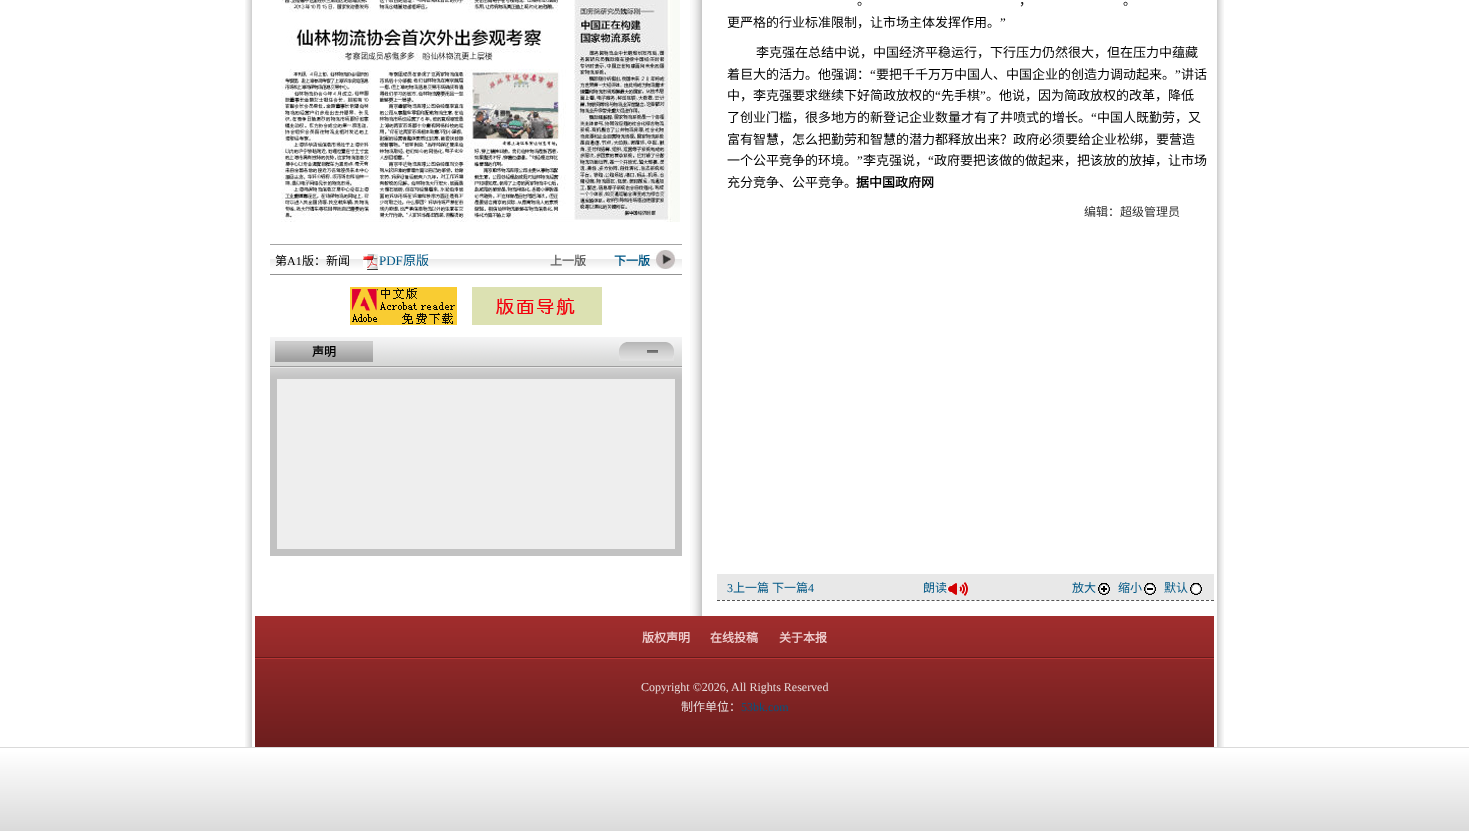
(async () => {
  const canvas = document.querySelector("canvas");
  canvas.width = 1469;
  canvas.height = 831;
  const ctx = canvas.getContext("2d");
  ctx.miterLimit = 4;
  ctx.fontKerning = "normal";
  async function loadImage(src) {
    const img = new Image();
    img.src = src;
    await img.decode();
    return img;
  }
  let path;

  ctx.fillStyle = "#ffffff";
  ctx.fillRect(0, 0, 1469, 831);
  ctx.drawImage(await loadImage("img/1.png"), 245, 0, 7, 747);
  ctx.drawImage(await loadImage("img/2.png"), 1217, 0, 7, 747);
  ctx.drawImage(await loadImage("img/3.png"), 690, 0, 12, 616);
  ctx.drawImage(await loadImage("img/4.png"), 281, 0, 399, 222);
  ctx.drawImage(await loadImage("img/5.png"), 270, 244, 412, 31);
  ctx.drawImage(await loadImage("img/6.png"), 363, 254, 16, 16);
  ctx.drawImage(await loadImage("img/7.png"), 654, 250, 22, 19);
  ctx.drawImage(await loadImage("img/8.png"), 350, 287, 107, 38);
  ctx.drawImage(await loadImage("img/9.png"), 472, 287, 130, 38);
  ctx.drawImage(await loadImage("img/10.png"), 270, 337, 412, 42);
  ctx.drawImage(await loadImage("img/11.png"), 275, 341, 98, 21);
  ctx.drawImage(await loadImage("img/12.png"), 619, 342, 55, 19);
  ctx.fillStyle = "#c2c2c2";
  ctx.fillRect(270, 379, 412, 177);
  ctx.fillStyle = "#eeeeee";
  ctx.fillRect(277, 379, 398, 170);
  path = new Path2D("M717 600.5H1214");
  ctx.strokeStyle = "#555555";
  ctx.setLineDash([3, 1.99]);
  ctx.stroke(path);
  ctx.fillStyle = "#e8e8e8";
  ctx.fillRect(717, 574, 497, 26);
  ctx.drawImage(await loadImage("img/13.png"), 947, 582, 21, 14);
  ctx.drawImage(await loadImage("img/14.png"), 1098, 583, 12, 12);
  ctx.drawImage(await loadImage("img/15.png"), 1144, 583, 12, 12);
  ctx.drawImage(await loadImage("img/16.png"), 1190, 583, 12, 12);
  ctx.drawImage(await loadImage("img/17.png"), 255, 616, 959, 41);
  ctx.drawImage(await loadImage("img/18.png"), 255, 657, 959, 90);
  ctx.drawImage(await loadImage("img/19.png"), 0, 747, 1469, 84);
  ctx.font = "12px Noto Sans CJK SC";
  ctx.fillStyle = "#000000";
  ctx.fillText("第", 275, 265);
  ctx.font = "12px Liberation Serif";
  ctx.fillText("A1", 287, 265);
  ctx.font = "12px Noto Sans CJK SC";
  ctx.fillText("版：新闻", 302, 265);
  ctx.font = "13px Liberation Serif";
  ctx.fillStyle = "#005785";
  ctx.fillText("PDF", 379, 265);
  ctx.font = "13px Noto Sans CJK SC";
  ctx.fillText("原版", 403, 265);
  ctx.font = "bold 12px Noto Sans CJK SC";
  ctx.fillStyle = "#666666";
  ctx.fillText("上一版", 550, 265);
  ctx.fillStyle = "#005785";
  ctx.fillText("下一版", 614, 265);
  ctx.fillStyle = "#000000";
  ctx.fillText("声明", 312, 356);
  ctx.font = "13px Noto Sans CJK SC";
  for (const [text, x, y] of [
    ["。", 857, 5],
    ["，", 1019, 5],
    ["。", 1123, 5],
    ["更严格的行业标准限制，让市场主体发挥作用。", 727, 27],
  ]) {
    ctx.fillText(text, x, y);
  }
  ctx.font = "13px Liberation Serif";
  ctx.fillText("”", 1000, 27);
  ctx.font = "13px Noto Sans CJK SC";
  ctx.fillText("李克强在总结中说，中国经济平稳运行，下行压力仍然很大，但在压力中蕴藏", 756, 57);
  ctx.fillText("着巨大的活力。他强调：", 727, 79);
  ctx.font = "13px Liberation Serif";
  ctx.fillText("“", 870, 79);
  ctx.font = "13px Noto Sans CJK SC";
  ctx.fillText("要把千千万万中国人、中国企业的创造力调动起来。", 876, 79);
  ctx.font = "13px Liberation Serif";
  ctx.fillText("”", 1175, 79);
  ctx.font = "13px Noto Sans CJK SC";
  ctx.fillText("讲话", 1181, 79);
  ctx.fillText("中，李克强要求继续下好简政放权的", 727, 100);
  ctx.font = "13px Liberation Serif";
  ctx.fillText("“", 935, 100);
  ctx.font = "13px Noto Sans CJK SC";
  ctx.fillText("先手棋", 941, 100);
  ctx.font = "13px Liberation Serif";
  ctx.fillText("”", 980, 100);
  ctx.font = "13px Noto Sans CJK SC";
  ctx.fillText("。他说，因为简政放权的改革，降低", 986, 100);
  ctx.fillText("了创业门槛，很多地方的新登记企业数量才有了井喷式的增长。", 727, 122);
  ctx.font = "13px Liberation Serif";
  ctx.fillText("“", 1091, 122);
  ctx.font = "13px Noto Sans CJK SC";
  for (const [text, x, y] of [
    ["中国人既勤劳，又", 1097, 122],
    ["富有智慧，怎么把勤劳和智慧的潜力都释放出来？政府必须要给企业松绑，要营造", 727, 144],
    ["一个公平竞争的环境。", 727, 165],
  ]) {
    ctx.fillText(text, x, y);
  }
  ctx.font = "13px Liberation Serif";
  ctx.fillText("”", 857, 165);
  ctx.font = "13px Noto Sans CJK SC";
  ctx.fillText("李克强说，", 863, 165);
  ctx.font = "13px Liberation Serif";
  ctx.fillText("“", 928, 165);
  ctx.font = "13px Noto Sans CJK SC";
  ctx.fillText("政府要把该做的做起来，把该放的放掉，让市场", 934, 165);
  ctx.fillText("充分竞争、公平竞争。", 727, 187);
  ctx.font = "13px Liberation Serif";
  ctx.fillText("”", 857, 187);
  ctx.font = "bold 13px Noto Sans CJK SC";
  ctx.fillText("据中国政府网", 856, 187);
  ctx.font = "12px Noto Sans CJK SC";
  ctx.fillStyle = "#333333";
  ctx.fillText("编辑：超级管理员", 1084, 216);
  ctx.font = "12px Liberation Serif";
  ctx.fillStyle = "#005785";
  ctx.fillText("3", 727, 592);
  ctx.font = "12px Noto Sans CJK SC";
  ctx.fillText("上一篇", 733, 592);
  ctx.fillText("下一篇", 772, 592);
  ctx.font = "12px Liberation Serif";
  ctx.fillText("4", 808, 592);
  ctx.font = "12px Noto Sans CJK SC";
  for (const [text, x, y] of [
    ["朗读", 923, 592],
    ["放大", 1072, 592],
    ["缩小", 1118, 592],
    ["默认", 1164, 592],
  ]) {
    ctx.fillText(text, x, y);
  }
  ctx.font = "bold 12px Noto Sans CJK SC";
  ctx.fillStyle = "#efd0d0";
  for (const [text, x, y] of [
    ["版权声明", 642, 642],
    ["在线投稿", 710, 642],
    ["关于本报", 779, 642],
  ]) {
    ctx.fillText(text, x, y);
  }
  ctx.font = "12px Liberation Serif";
  ctx.fillStyle = "#e5d9d9";
  ctx.fillText("Copyright ©2026, All Rights Reserved", 641, 691);
  ctx.font = "12px Noto Sans CJK SC";
  ctx.fillText("制作单位：", 681, 711);
  ctx.font = "12px Liberation Serif";
  ctx.fillStyle = "#005785";
  ctx.fillText("53bk.com", 741, 711);
})();
